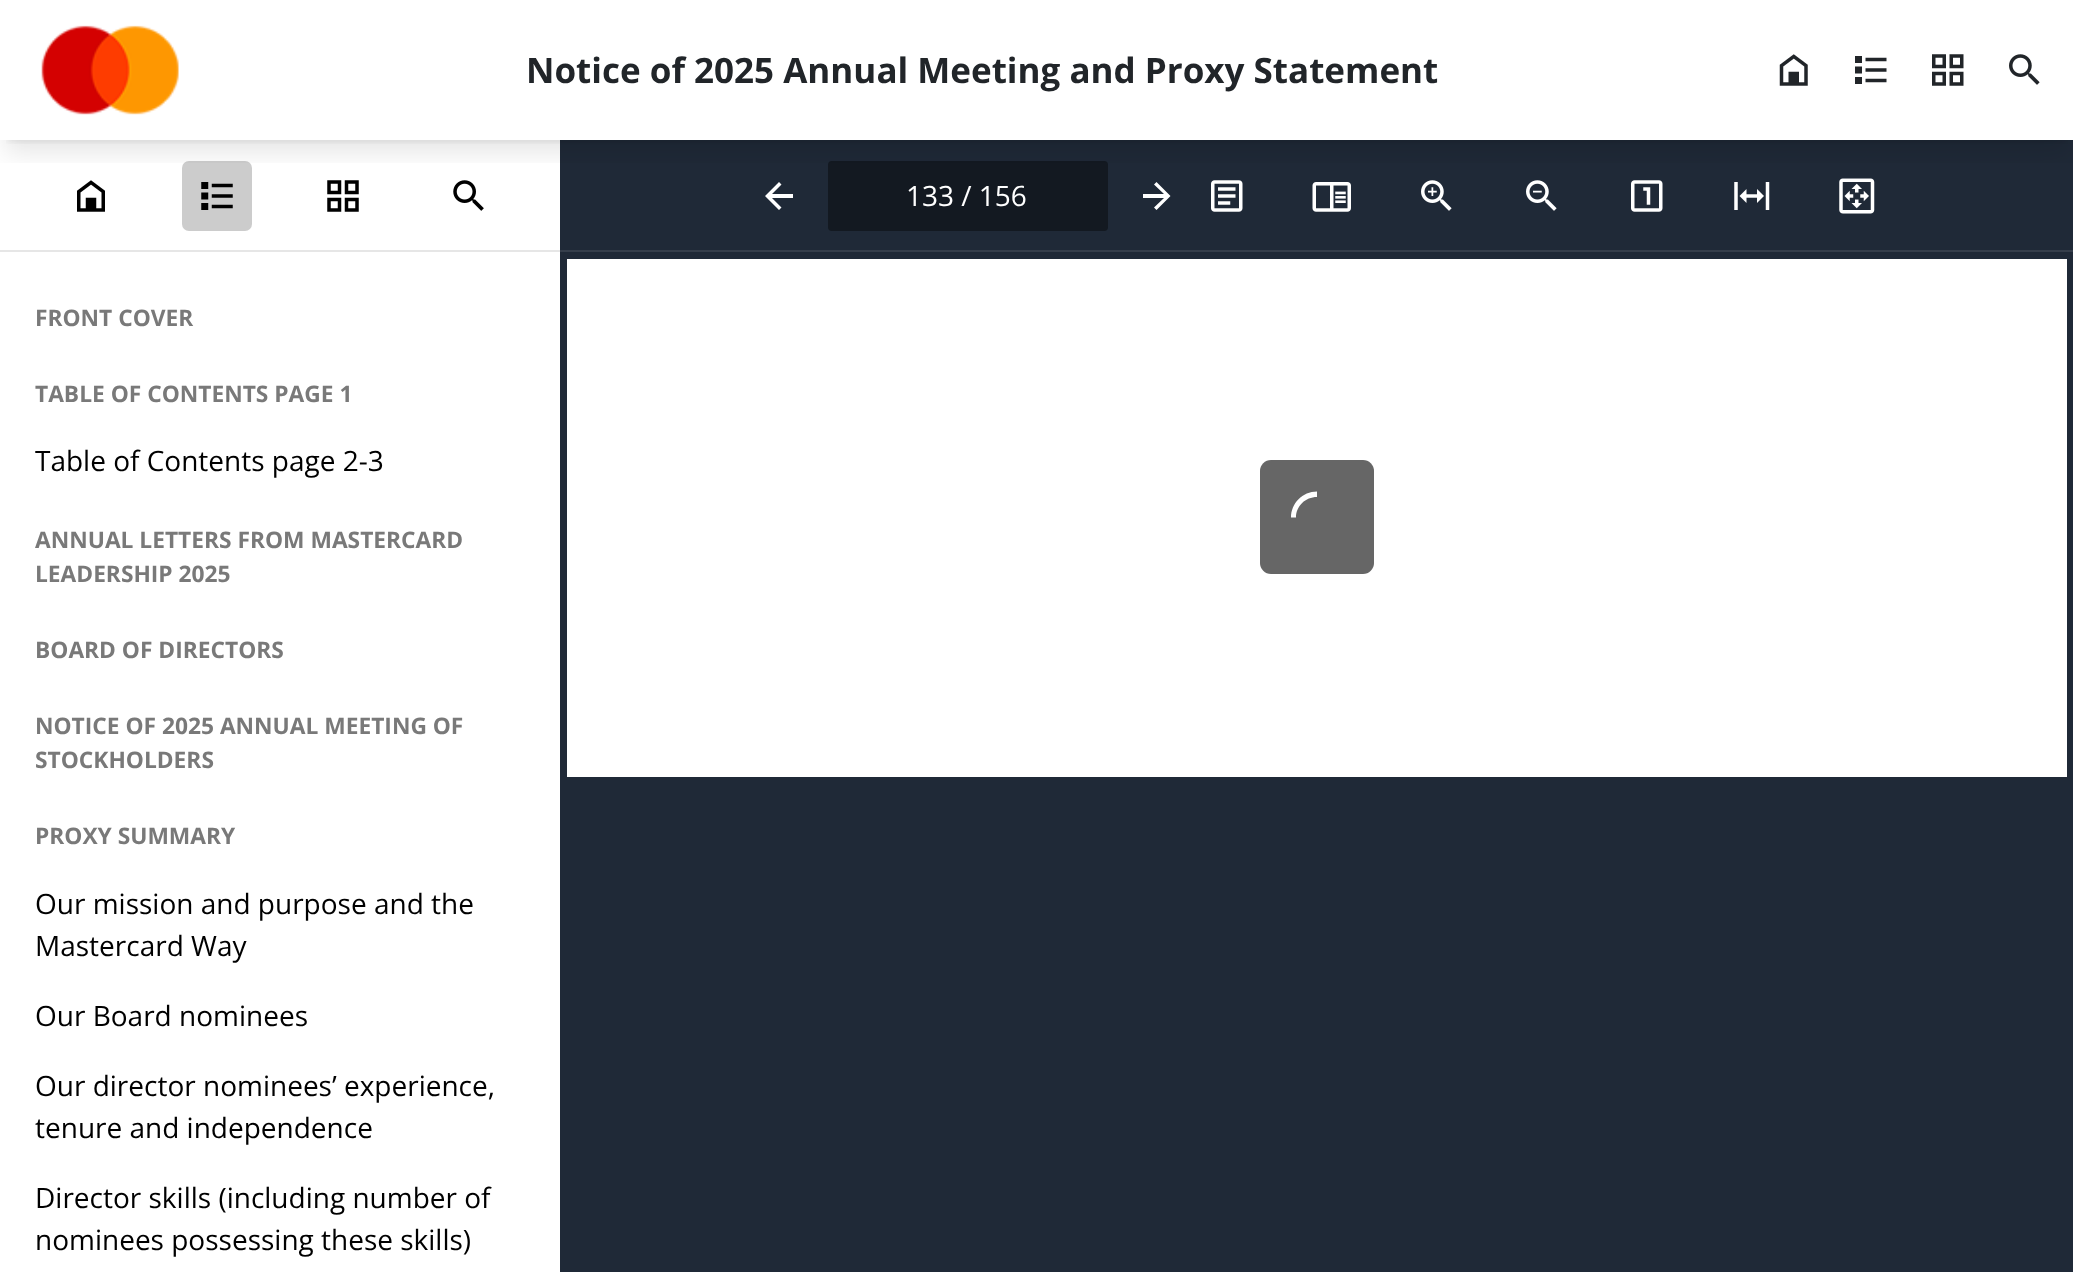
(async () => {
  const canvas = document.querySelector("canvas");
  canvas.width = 2073;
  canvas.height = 1272;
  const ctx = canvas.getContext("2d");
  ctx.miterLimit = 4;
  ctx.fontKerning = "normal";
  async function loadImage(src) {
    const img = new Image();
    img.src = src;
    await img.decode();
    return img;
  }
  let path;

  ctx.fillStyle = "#ffffff";
  ctx.fillRect(0, 0, 2073, 1272);
  ctx.fillStyle = "#1f2937";
  ctx.fillRect(560, 140, 1513, 110);
  ctx.save();
  ctx.beginPath();
  ctx.rect(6, 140, 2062, 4);
  ctx.clip();
  ctx.fillStyle = "rgba(0, 0, 0, 0.1)";
  ctx.filter = "blur(5px)";
  ctx.beginPath();
  ctx.rect(7, 14, 2060, 126);
  ctx.fill();
  ctx.filter = "none";
  ctx.restore();
  ctx.drawImage(await loadImage("img/6.png"), 77, 180, 28, 32);
  ctx.fillStyle = "#cccccc";
  ctx.beginPath();
  ctx.roundRect(182, 161, 70, 70, 7);
  ctx.fill();
  ctx.drawImage(await loadImage("img/7.png"), 201, 182, 32, 28);
  ctx.drawImage(await loadImage("img/8.png"), 327, 180, 32, 32);
  ctx.drawImage(await loadImage("img/9.png"), 453, 180, 31, 31);
  ctx.fillStyle = "#ffffff";
  path = new Path2D("M793 194V198H772L781.5 207.5L779 210L765 196L779 182L781.5 184.5L772 194Z");
  ctx.fill(path);
  ctx.fillStyle = "#131921";
  ctx.beginPath();
  ctx.roundRect(828, 161, 280, 70, 4);
  ctx.fill();
  ctx.fillStyle = "#ffffff";
  path = new Path2D("M1143 194V198H1164L1154 207.5L1156.5 210L1170.5 196L1156.5 182L1154 184.5L1164 194Z");
  ctx.fill(path);
  ctx.drawImage(await loadImage("img/10.png"), 1211, 180, 32, 32);
  ctx.drawImage(await loadImage("img/11.png"), 1312, 182, 39, 30);
  ctx.drawImage(await loadImage("img/12.png"), 1421, 180, 31, 31);
  ctx.drawImage(await loadImage("img/13.png"), 1526, 180, 31, 31);
  ctx.drawImage(await loadImage("img/14.png"), 1631, 180, 32, 32);
  ctx.drawImage(await loadImage("img/15.png"), 1734, 182, 36, 28);
  ctx.drawImage(await loadImage("img/16.png"), 1839, 178, 36, 36);
  ctx.save();
  ctx.beginPath();
  ctx.rect(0, 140, 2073, 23);
  ctx.clip();
  ctx.fillStyle = "rgba(0, 0, 0, 0.1)";
  ctx.filter = "blur(13px)";
  ctx.beginPath();
  ctx.rect(5, 23, 2064, 129);
  ctx.fill();
  ctx.filter = "none";
  ctx.restore();
  ctx.drawImage(await loadImage("img/1.png"), 41, 25, 138, 90);
  ctx.drawImage(await loadImage("img/2.png"), 1779, 54, 29, 32);
  ctx.drawImage(await loadImage("img/3.png"), 1855, 56, 32, 28);
  ctx.drawImage(await loadImage("img/4.png"), 1932, 54, 32, 32);
  ctx.drawImage(await loadImage("img/5.png"), 2009, 54, 31, 31);
  for (const [x, y, w, h, color] of [
    [0, 250, 560, 2, "#e6e6e6"],
    [560, 250, 1513, 2, "#353e4b"],
    [560, 252, 1513, 1020, "#1f2937"],
    [567, 259, 1500, 518, "#ffffff"],
  ]) {
    ctx.fillStyle = color;
    ctx.fillRect(x, y, w, h);
  }
  ctx.fillStyle = "#666666";
  ctx.beginPath();
  ctx.roundRect(1260, 460, 114, 114, 11);
  ctx.fill();
  ctx.fillStyle = "#ffffff";
  path = new Path2D("M1317 497V491.5C1302.5 491.5 1291 503.5 1291 517.5H1296C1296 506 1305.5 497 1317 497Z");
  ctx.fill(path);
  ctx.font = "bold 35px Open Sans";
  ctx.fillStyle = "#212529";
  ctx.fillText("Notice of 2025 Annual Meeting and Proxy Statement", 526, 83);
  ctx.font = "28px Open Sans";
  ctx.fillStyle = "#ffffff";
  ctx.fillText("133 / 156", 906, 206);
  ctx.font = "bold 22.75px Open Sans";
  ctx.fillStyle = "#797979";
  ctx.fillText("FRONT COVER", 35, 326);
  ctx.fillText("TABLE OF CONTENTS PAGE 1", 35, 402);
  ctx.font = "28px Open Sans";
  ctx.fillStyle = "#000000";
  ctx.fillText("Table of Contents page 2-3", 35, 471);
  ctx.font = "bold 22.75px Open Sans";
  ctx.fillStyle = "#797979";
  for (const [text, x, y] of [
    ["ANNUAL LETTERS FROM MASTERCARD", 35, 548],
    ["LEADERSHIP 2025", 35, 582],
    ["BOARD OF DIRECTORS", 35, 658],
    ["NOTICE OF 2025 ANNUAL MEETING OF", 35, 734],
    ["STOCKHOLDERS", 35, 768],
    ["PROXY SUMMARY", 35, 844],
  ]) {
    ctx.fillText(text, x, y);
  }
  ctx.font = "28px Open Sans";
  ctx.fillStyle = "#000000";
  for (const [text, x, y] of [
    ["Our mission and purpose and the", 35, 914],
    ["Mastercard Way", 35, 956],
    ["Our Board nominees", 35, 1026],
    ["Our director nominees’ experience,", 35, 1096],
    ["tenure and independence", 35, 1138],
    ["Director skills (including number of", 35, 1208],
    ["nominees possessing these skills)", 35, 1250],
  ]) {
    ctx.fillText(text, x, y);
  }
})();
